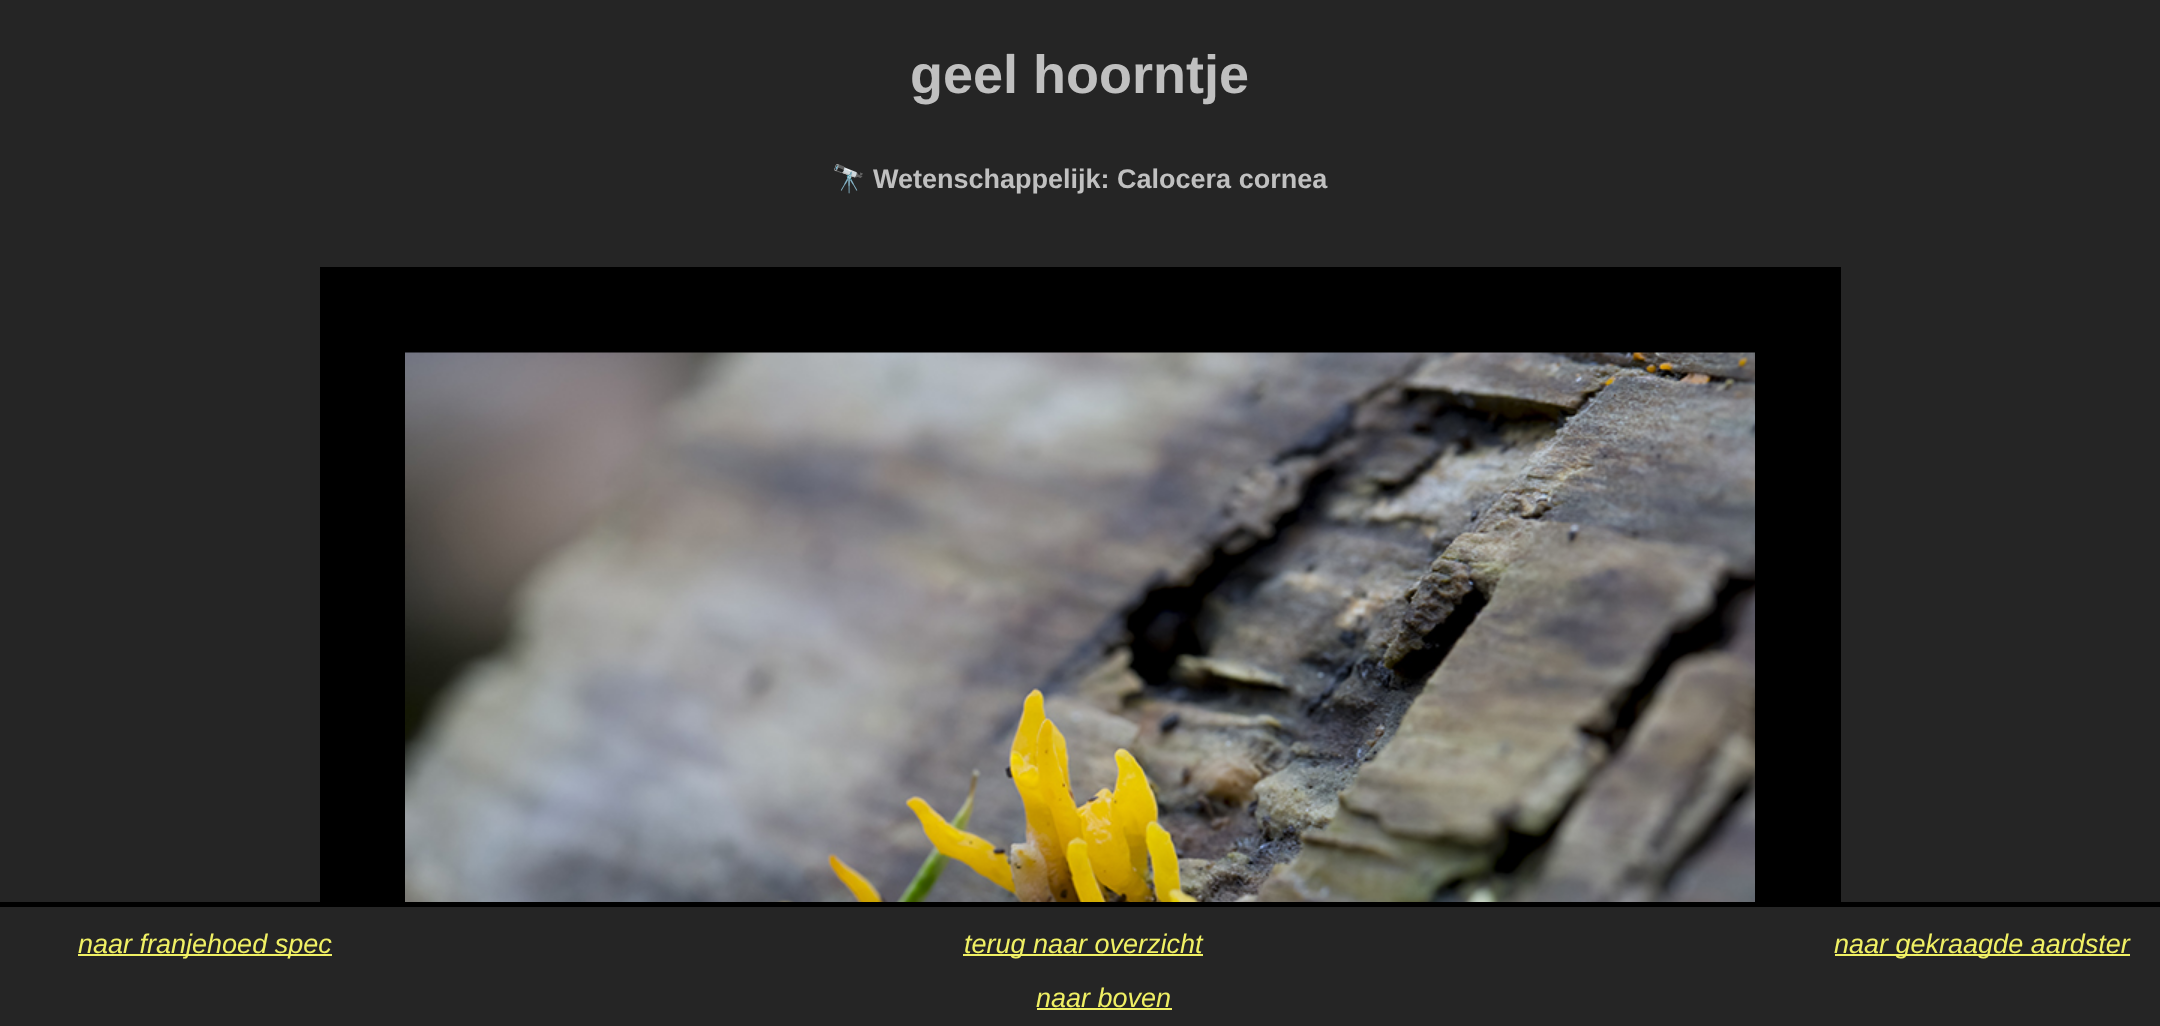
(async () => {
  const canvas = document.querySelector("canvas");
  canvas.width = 2160;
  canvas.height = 1026;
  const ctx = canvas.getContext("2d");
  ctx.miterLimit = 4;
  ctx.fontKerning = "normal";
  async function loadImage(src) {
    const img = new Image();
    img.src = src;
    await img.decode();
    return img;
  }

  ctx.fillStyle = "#252525";
  ctx.fillRect(0, 0, 2160, 1026);
  ctx.strokeStyle = "#000000";
  ctx.lineWidth = 86;
  ctx.strokeRect(363, 310, 1435, 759);
  ctx.drawImage(await loadImage("img/1.png"), 405, 352, 1350, 550);
  for (const [x, y, w, h, color] of [
    [320, 907, 1521, 119, "#252525"],
    [0, 902, 2160, 5, "#000000"],
    [78, 954, 254, 2, "#f0f064"],
    [963, 954, 240, 2, "#f0f064"],
    [1835, 954, 295, 2, "#f0f064"],
    [1037, 1008, 135, 2, "#f0f064"],
  ]) {
    ctx.fillStyle = color;
    ctx.fillRect(x, y, w, h);
  }
  ctx.font = "bold 54px Liberation Sans";
  ctx.fillStyle = "#c0c0c0";
  ctx.fillText("geel hoorntje", 910, 93);
  ctx.font = "bold 27px Noto Color Emoji";
  ctx.fillText("🔭", 832, 188);
  ctx.font = "bold 27px Liberation Sans";
  ctx.fillText("Wetenschappelijk: Calocera cornea", 873, 188);
  ctx.font = "italic 27px Liberation Sans";
  ctx.fillStyle = "#f0f064";
  for (const [text, x, y] of [
    ["naar franjehoed spec", 78, 953],
    ["terug naar overzicht", 964, 953],
    ["naar gekraagde aardster", 1834, 953],
    ["naar boven", 1036, 1007],
  ]) {
    ctx.fillText(text, x, y);
  }
})();
